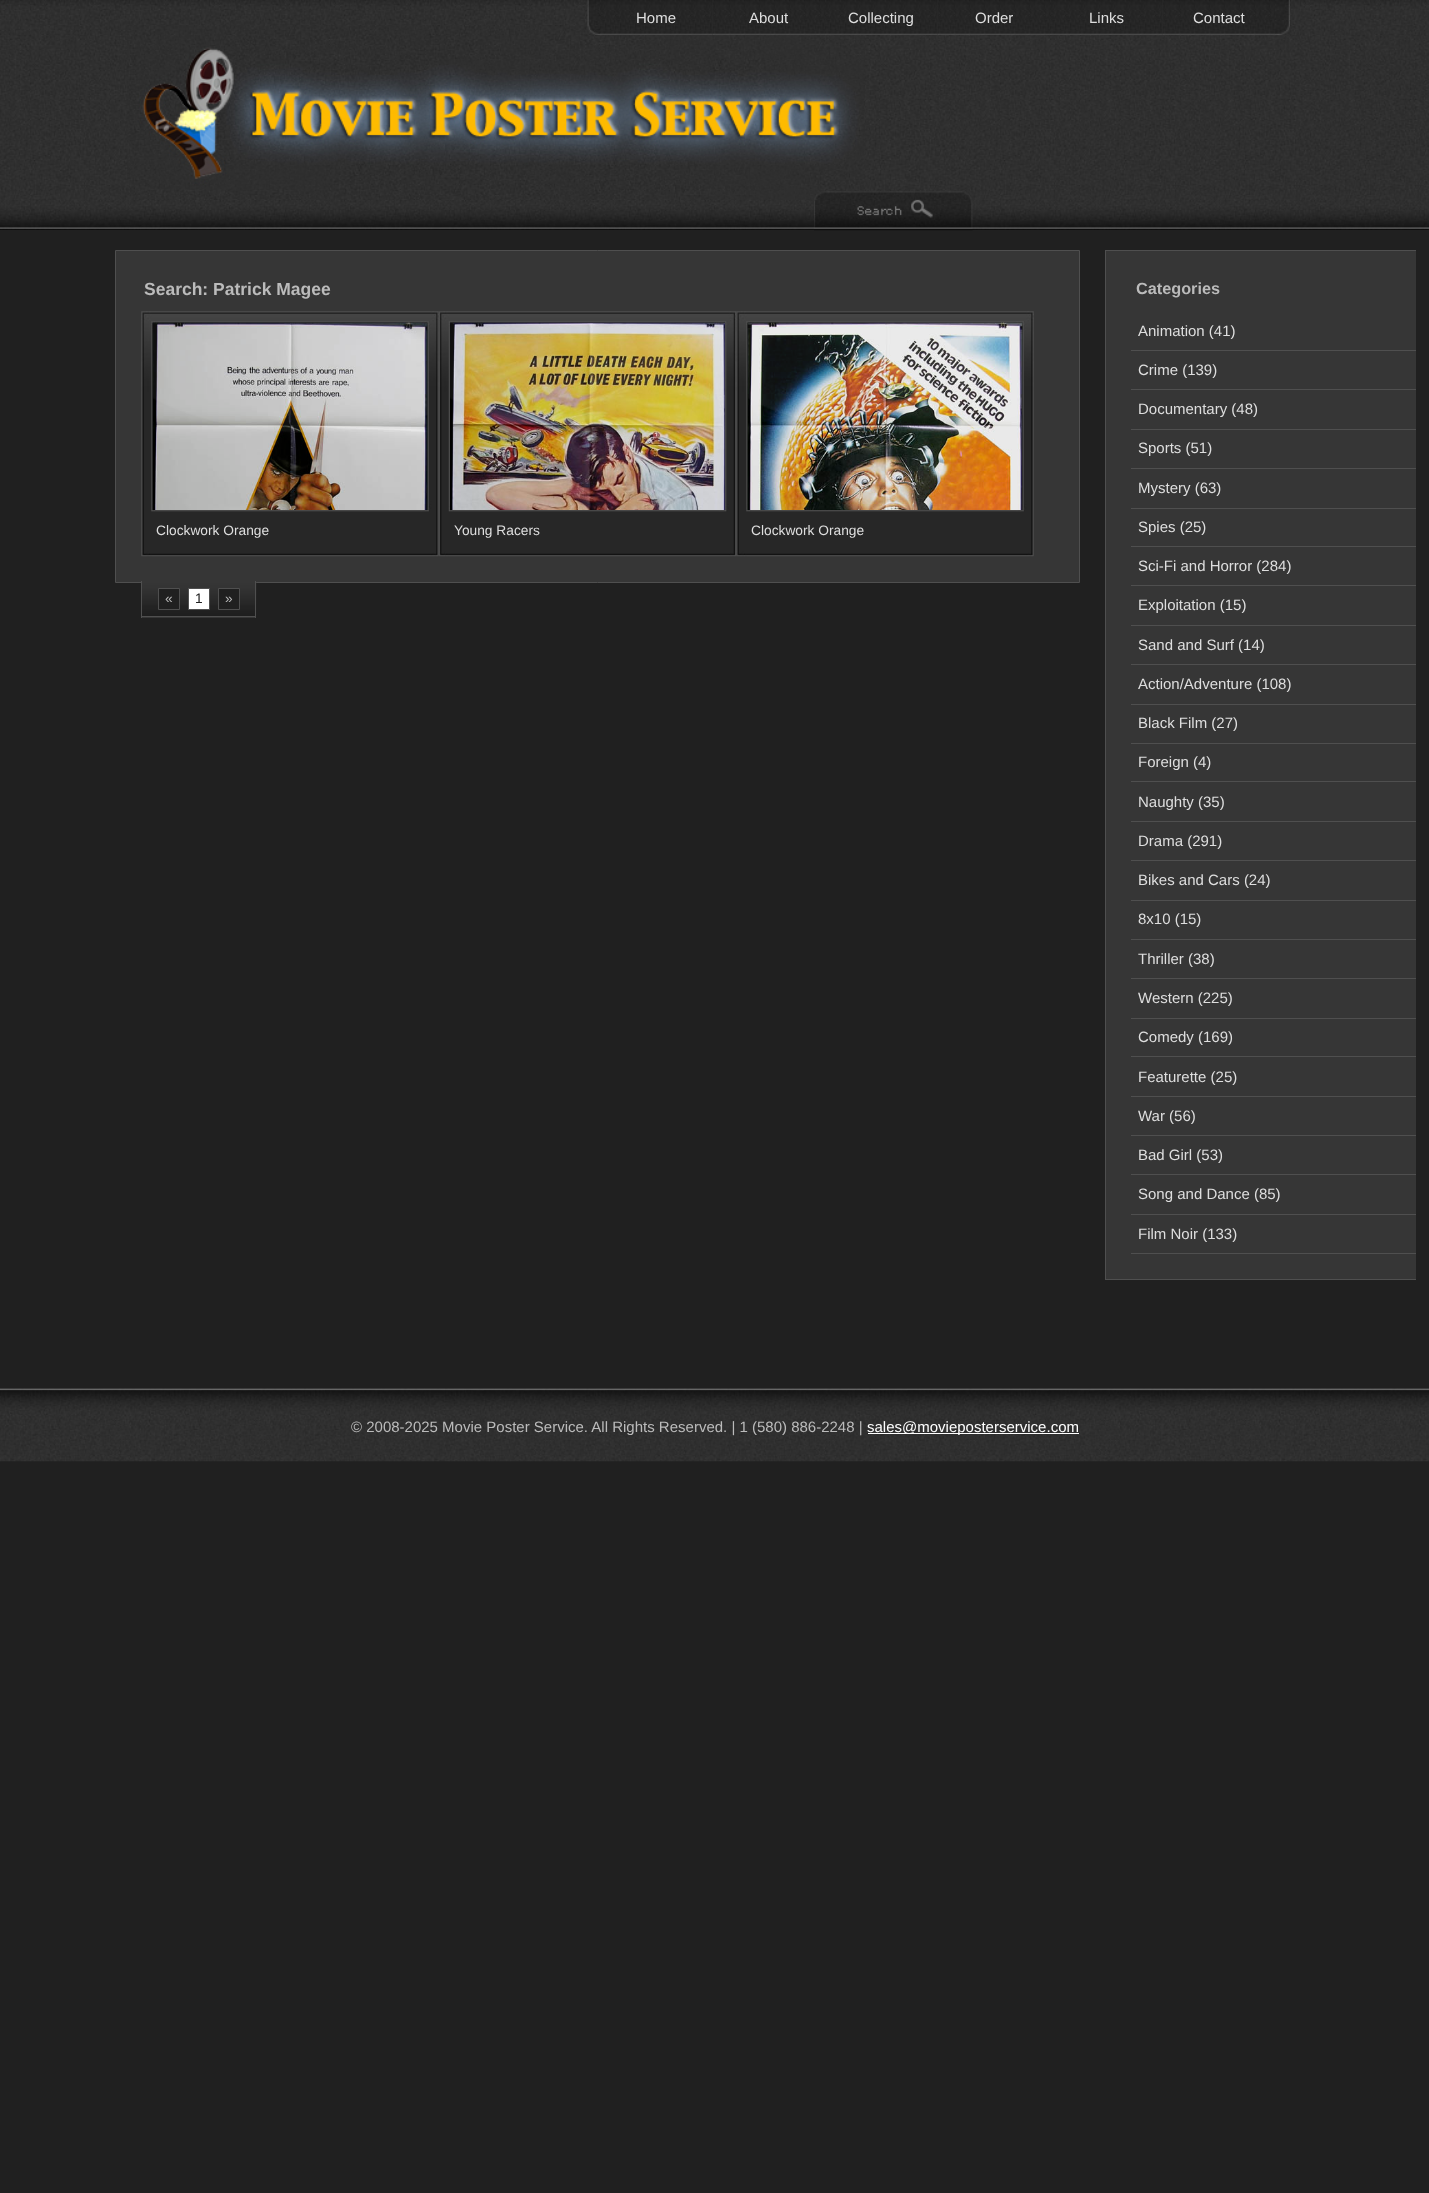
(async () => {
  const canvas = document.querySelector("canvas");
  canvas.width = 1429;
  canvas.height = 2193;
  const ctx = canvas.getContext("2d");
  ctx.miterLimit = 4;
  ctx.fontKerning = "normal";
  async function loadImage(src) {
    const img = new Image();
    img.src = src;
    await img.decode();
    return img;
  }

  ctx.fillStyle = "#202020";
  ctx.fillRect(0, 0, 1429, 2193);
  ctx.drawImage(await loadImage("img/1.png"), 0, 0, 1429, 230);
  ctx.drawImage(await loadImage("img/2.png"), 0, 1388, 1429, 74);
  ctx.drawImage(await loadImage("img/11.png"), 127, 25, 738, 175);
  ctx.drawImage(await loadImage("img/3.png"), 587, 0, 13, 35);
  ctx.drawImage(await loadImage("img/4.png"), 1275, 0, 15, 35);
  ctx.drawImage(await loadImage("img/5.png"), 600, 0, 113, 35);
  ctx.drawImage(await loadImage("img/6.png"), 712, 0, 113, 35);
  ctx.drawImage(await loadImage("img/7.png"), 825, 0, 113, 35);
  ctx.drawImage(await loadImage("img/8.png"), 937, 0, 113, 35);
  ctx.drawImage(await loadImage("img/9.png"), 1050, 0, 113, 35);
  ctx.drawImage(await loadImage("img/10.png"), 1162, 0, 113, 35);
  ctx.drawImage(await loadImage("img/12.png"), 814, 191, 159, 40);
  ctx.fillStyle = "#363636";
  ctx.beginPath();
  ctx.rect(115.5, 250.5, 964, 332);
  ctx.fill();
  ctx.strokeStyle = "#4f4f4f";
  ctx.stroke();
  ctx.drawImage(await loadImage("img/13.png"), 141, 311, 298, 246);
  ctx.drawImage(await loadImage("img/14.png"), 152, 322, 276, 188);
  ctx.drawImage(await loadImage("img/15.png"), 153, 323, 275, 110);
  ctx.drawImage(await loadImage("img/16.png"), 439, 311, 298, 246);
  ctx.drawImage(await loadImage("img/17.png"), 450, 322, 275, 188);
  ctx.drawImage(await loadImage("img/18.png"), 450, 323, 275, 110);
  ctx.drawImage(await loadImage("img/19.png"), 736, 311, 298, 246);
  ctx.drawImage(await loadImage("img/20.png"), 747, 322, 276, 188);
  ctx.drawImage(await loadImage("img/21.png"), 748, 323, 275, 110);
  ctx.fillRect(142, 582, 113, 36);
  ctx.drawImage(await loadImage("img/22.png"), 142, 582, 115, 35);
  for (const [x, y, w, h, color] of [
    [255, 581, 1, 37, "#4f4f4f"],
    [141, 616, 115, 1, "#4f4f4f"],
    [141, 581, 1, 37, "#4f4f4f"],
  ]) {
    ctx.fillStyle = color;
    ctx.fillRect(x, y, w, h);
  }
  ctx.fillStyle = "#202020";
  ctx.beginPath();
  ctx.rect(158.5, 588.5, 21, 21);
  ctx.fill();
  ctx.stroke();
  ctx.fillStyle = "#ffffff";
  ctx.beginPath();
  ctx.rect(188.5, 588.5, 21, 21);
  ctx.fill();
  ctx.stroke();
  ctx.fillStyle = "#202020";
  ctx.beginPath();
  ctx.rect(218.5, 588.5, 21, 21);
  ctx.fill();
  ctx.stroke();
  ctx.fillStyle = "#363636";
  ctx.fillRect(1106, 251, 310, 1028);
  ctx.save();
  ctx.beginPath();
  ctx.rect(1105, 250, 311, 1055);
  ctx.clip();
  ctx.strokeRect(1105.5, 250.5, 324, 1029);
  ctx.restore();
  for (const [x, y, w, h, color] of [
    [1131, 350, 285, 1, "#4f4f4f"],
    [1131, 389, 285, 1, "#4f4f4f"],
    [1131, 429, 285, 1, "#4f4f4f"],
    [1131, 468, 285, 1, "#4f4f4f"],
    [1131, 508, 285, 1, "#4f4f4f"],
    [1131, 546, 285, 1, "#4f4f4f"],
    [1131, 585, 285, 1, "#4f4f4f"],
    [1131, 625, 285, 1, "#4f4f4f"],
    [1131, 664, 285, 1, "#4f4f4f"],
    [1131, 704, 285, 1, "#4f4f4f"],
    [1131, 743, 285, 1, "#4f4f4f"],
    [1131, 781, 285, 1, "#4f4f4f"],
    [1131, 821, 285, 1, "#4f4f4f"],
    [1131, 860, 285, 1, "#4f4f4f"],
    [1131, 900, 285, 1, "#4f4f4f"],
    [1131, 939, 285, 1, "#4f4f4f"],
    [1131, 978, 285, 1, "#4f4f4f"],
    [1131, 1018, 285, 1, "#4f4f4f"],
    [1131, 1056, 285, 1, "#4f4f4f"],
    [1131, 1096, 285, 1, "#4f4f4f"],
    [1131, 1135, 285, 1, "#4f4f4f"],
    [1131, 1174, 285, 1, "#4f4f4f"],
    [1131, 1214, 285, 1, "#4f4f4f"],
    [1131, 1253, 285, 1, "#4f4f4f"],
    [868, 1433, 211, 1, "#ffffff"],
  ]) {
    ctx.fillStyle = color;
    ctx.fillRect(x, y, w, h);
  }
  ctx.font = "15px Liberation Sans";
  ctx.fillStyle = "#dedede";
  for (const [text, x, y] of [
    ["Home", 636, 23],
    ["About", 749, 23],
    ["Collecting", 848, 23],
    ["Order", 975, 23],
    ["Links", 1089, 23],
    ["Contact", 1193, 23],
  ]) {
    ctx.fillText(text, x, y);
  }
  ctx.font = "bold 17.5px Liberation Sans";
  ctx.fillStyle = "#bbbbbb";
  ctx.fillText("Search: Patrick Magee", 144, 295);
  ctx.font = "13.75px Liberation Sans";
  ctx.fillStyle = "#dedede";
  for (const [text, x, y] of [
    ["Clockwork Orange", 156, 535],
    ["Young Racers", 454, 535],
    ["Clockwork Orange", 751, 535],
  ]) {
    ctx.fillText(text, x, y);
  }
  ctx.fillStyle = "#bbbbbb";
  ctx.fillText("«", 165, 603);
  ctx.fillStyle = "#202020";
  ctx.fillText("1", 195, 603);
  ctx.fillStyle = "#bbbbbb";
  ctx.fillText("»", 225, 603);
  ctx.font = "bold 16.25px Liberation Sans";
  ctx.fillText("Categories", 1136, 294);
  ctx.font = "15px Liberation Sans";
  ctx.fillStyle = "#dedede";
  for (const [text, x, y] of [
    ["Animation (41)", 1138, 336],
    ["Crime (139)", 1138, 375],
    ["Documentary (48)", 1138, 414],
    ["Sports (51)", 1138, 453],
    ["Mystery (63)", 1138, 493],
    ["Spies (25)", 1138, 532],
    ["Sci-Fi and Horror (284)", 1138, 571],
    ["Exploitation (15)", 1138, 610],
    ["Sand and Surf (14)", 1138, 650],
    ["Action/Adventure (108)", 1138, 689],
    ["Black Film (27)", 1138, 728],
    ["Foreign (4)", 1138, 767],
    ["Naughty (35)", 1138, 807],
    ["Drama (291)", 1138, 846],
    ["Bikes and Cars (24)", 1138, 885],
    ["8x10 (15)", 1138, 924],
    ["Thriller (38)", 1138, 964],
    ["Western (225)", 1138, 1003],
    ["Comedy (169)", 1138, 1042],
    ["Featurette (25)", 1138, 1082],
    ["War (56)", 1138, 1121],
    ["Bad Girl (53)", 1138, 1160],
    ["Song and Dance (85)", 1138, 1199],
    ["Film Noir (133)", 1138, 1239],
  ]) {
    ctx.fillText(text, x, y);
  }
  ctx.fillStyle = "#bbbbbb";
  ctx.fillText("© 2008-2025 Movie Poster Service. All Rights Reserved. | 1 (580) 886-2248 |", 351, 1432);
  ctx.fillStyle = "#ffffff";
  ctx.fillText("sales@movieposterservice.com", 867, 1432);
})();
